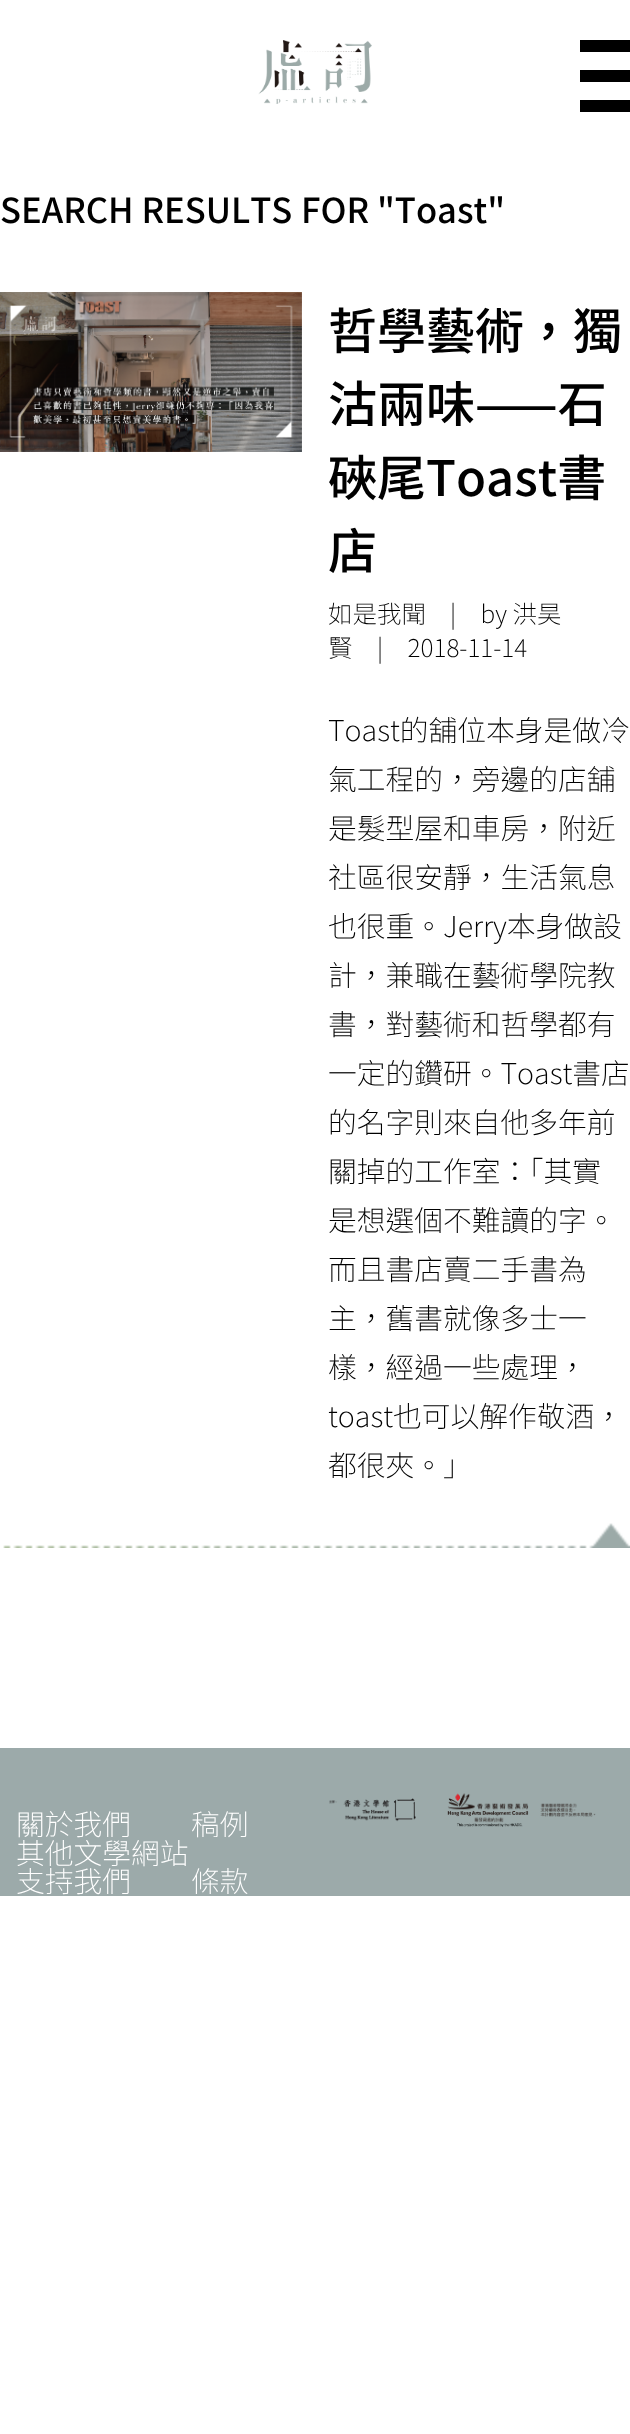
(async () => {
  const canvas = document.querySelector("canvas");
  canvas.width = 630;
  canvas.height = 2434;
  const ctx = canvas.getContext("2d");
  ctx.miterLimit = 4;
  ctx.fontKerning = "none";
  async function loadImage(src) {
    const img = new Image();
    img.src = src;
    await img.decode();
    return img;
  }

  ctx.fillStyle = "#ffffff";
  ctx.fillRect(0, 0, 630, 2434);
  ctx.drawImage(await loadImage("img/1.png"), 258, 40, 114, 64);
  for (const [x, y, w, h, color] of [
    [580, 40, 50, 12, "#000000"],
    [580, 70, 50, 12, "#000000"],
    [580, 100, 50, 12, "#000000"],
  ]) {
    ctx.fillStyle = color;
    ctx.fillRect(x, y, w, h);
  }
  ctx.drawImage(await loadImage("img/2.png"), 3, 1523, 627, 25);
  ctx.drawImage(await loadImage("img/3.png"), 0, 292, 302, 160);
  ctx.fillStyle = "#9caaaa";
  ctx.fillRect(0, 1748, 630, 148);
  ctx.drawImage(await loadImage("img/4.png"), 329, 1793, 267, 34);
  ctx.font = "500 34.5px Noto Sans TC";
  ctx.fillStyle = "#000000";
  ctx.fillText("SEARCH RESULTS", 0, 223);
  ctx.fillText("FOR \"Toast\"", 301, 223);
  ctx.font = "500 49px Noto Sans TC";
  for (const [text, x, y] of [
    ["哲學藝術，獨", 328, 349],
    ["沽兩味——石", 328, 422],
    ["硤尾Toast書", 328, 496],
    ["店", 328, 569],
  ]) {
    ctx.fillText(text, x, y);
  }
  ctx.font = "200 24.5px Noto Sans TC";
  for (const [text, x, y] of [
    ["如是我聞", 328, 623],
    ["| by 洪昊", 450, 623],
    ["賢", 328, 657],
    ["| 2018-11-14", 377, 657],
  ]) {
    ctx.fillText(text, x, y);
  }
  ctx.font = "200 28.75px Noto Sans TC";
  for (const [text, x, y] of [
    ["Toast的舖位本身是做冷", 328, 741],
    ["氣工程的，旁邊的店舖", 328, 790],
    ["是髮型屋和車房，附近", 328, 839],
    ["社區很安靜，生活氣息", 328, 888],
    ["也很重。Jerry本身做設", 328, 937],
    ["計，兼職在藝術學院教", 328, 986],
    ["書，對藝術和哲學都有", 328, 1035],
    ["一定的鑽研。Toast書店", 328, 1084],
    ["的名字則來自他多年前", 328, 1133],
    ["關掉的工作室：「其實", 328, 1182],
    ["是想選個不難讀的字。", 328, 1231],
    ["而且書店賣二手書為", 328, 1280],
    ["主，舊書就像多士一", 328, 1329],
    ["樣，經過一些處理，", 328, 1378],
    ["toast也可以解作敬酒，", 328, 1427],
    ["都很夾。」", 328, 1476],
  ]) {
    ctx.fillText(text, x, y);
  }
  ctx.fillStyle = "#ffffff";
  for (const [text, x, y] of [
    ["關於我們", 16, 1835],
    ["稿例", 191, 1835],
    ["其他文學網站", 16, 1864],
    ["支持我們", 16, 1892],
    ["條款", 191, 1892],
  ]) {
    ctx.fillText(text, x, y);
  }
})();
